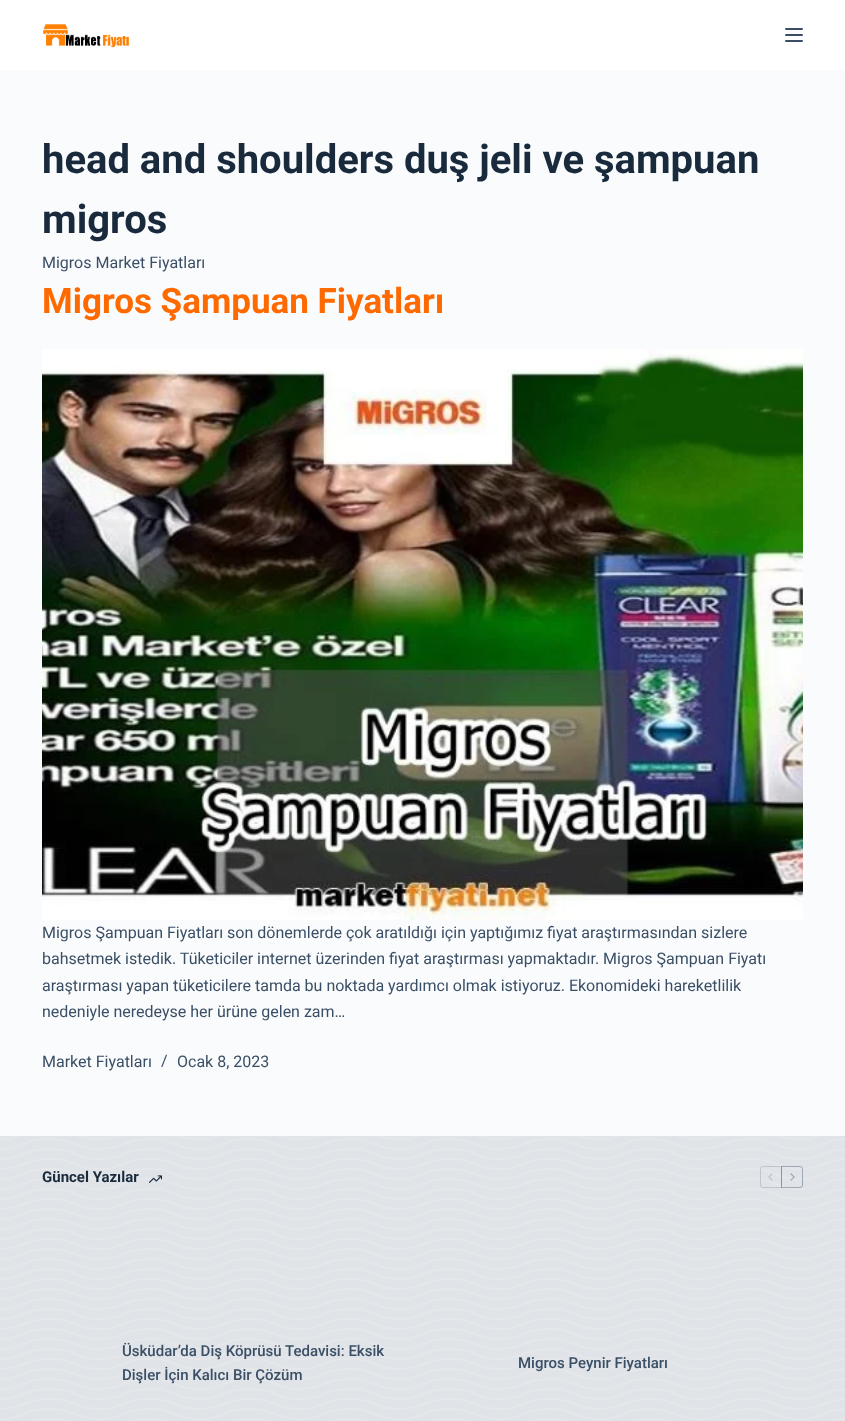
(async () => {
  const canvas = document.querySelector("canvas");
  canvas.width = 845;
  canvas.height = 1421;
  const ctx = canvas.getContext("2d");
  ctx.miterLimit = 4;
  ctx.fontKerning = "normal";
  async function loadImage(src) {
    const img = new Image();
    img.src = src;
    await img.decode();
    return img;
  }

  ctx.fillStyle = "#fafbfc";
  ctx.fillRect(0, 0, 845, 1421);
  ctx.fillStyle = "#ffffff";
  ctx.fillRect(0, 0, 845, 70);
  ctx.drawImage(await loadImage("img/1.png"), 42, 24, 87, 24);
  ctx.fillStyle = "#3a4f66";
  ctx.beginPath();
  ctx.roundRect(785, 28, 18, 2, 1);
  ctx.fill();
  ctx.beginPath();
  ctx.roundRect(785, 34, 18, 2, 1);
  ctx.fill();
  ctx.beginPath();
  ctx.roundRect(785, 40, 18, 2, 1);
  ctx.fill();
  ctx.drawImage(await loadImage("img/2.png"), 42, 349, 761, 571);
  ctx.fillStyle = "#e0e3e8";
  ctx.fillRect(0, 1136, 845, 285);
  ctx.drawImage(await loadImage("img/3.png"), 0, 1136, 845, 285);
  ctx.drawImage(await loadImage("img/4.png"), 149, 1175, 13, 8);
  ctx.beginPath();
  ctx.roundRect(760.5, 1166.5, 21, 21, [2.5, 0, 0, 2.5]);
  ctx.strokeStyle = "rgba(58, 79, 102, 0.2)";
  ctx.stroke();
  ctx.drawImage(await loadImage("img/5.png"), 768, 1173, 5, 8);
  ctx.beginPath();
  ctx.roundRect(781.5, 1166.5, 21, 21, [0, 2.5, 2.5, 0]);
  ctx.strokeStyle = "rgba(58, 79, 102, 0.4)";
  ctx.stroke();
  ctx.drawImage(await loadImage("img/6.png"), 790, 1173, 5, 8);
  ctx.font = "bold 40px Roboto";
  ctx.fillStyle = "#192a3d";
  ctx.fillText("head and shoulders duş jeli ve şampuan", 42, 173);
  ctx.fillText("migros", 42, 233);
  ctx.font = "16px Roboto";
  ctx.fillStyle = "#3a4f66";
  ctx.fillText("Migros Market Fiyatları", 42, 268);
  ctx.font = "bold 35px Roboto";
  ctx.fillStyle = "#ff6a00";
  ctx.fillText("Migros Şampuan Fiyatları", 42, 313);
  ctx.font = "16px Roboto";
  ctx.fillStyle = "#3a4f66";
  for (const [text, x, y] of [
    ["Migros Şampuan Fiyatları son dönemlerde çok aratıldığı için yaptığımız fiyat araştırmasından sizlere", 42, 938],
    ["bahsetmek istedik. Tüketiciler internet üzerinden fiyat araştırması yapmaktadır. Migros Şampuan Fiyatı", 42, 964],
    ["araştırması yapan tüketicilere tamda bu noktada yardımcı olmak istiyoruz. Ekonomideki hareketlilik", 42, 991],
    ["nedeniyle neredeyse her ürüne gelen zam…", 42, 1017],
    ["Market Fiyatları", 42, 1067],
    ["/", 161, 1066],
    ["Ocak 8, 2023", 177, 1067],
  ]) {
    ctx.fillText(text, x, y);
  }
  ctx.font = "bold 15px Roboto";
  ctx.fillStyle = "#192a3d";
  ctx.fillText("Güncel Yazılar", 42, 1182);
  ctx.font = "500 15px Roboto";
  ctx.fillStyle = "#3a4f66";
  for (const [text, x, y] of [
    ["Üsküdar’da Diş Köprüsü Tedavisi: Eksik", 122, 1356],
    ["Dişler İçin Kalıcı Bir Çözüm", 122, 1380],
    ["Migros Peynir Fiyatları", 518, 1368],
  ]) {
    ctx.fillText(text, x, y);
  }
})();
